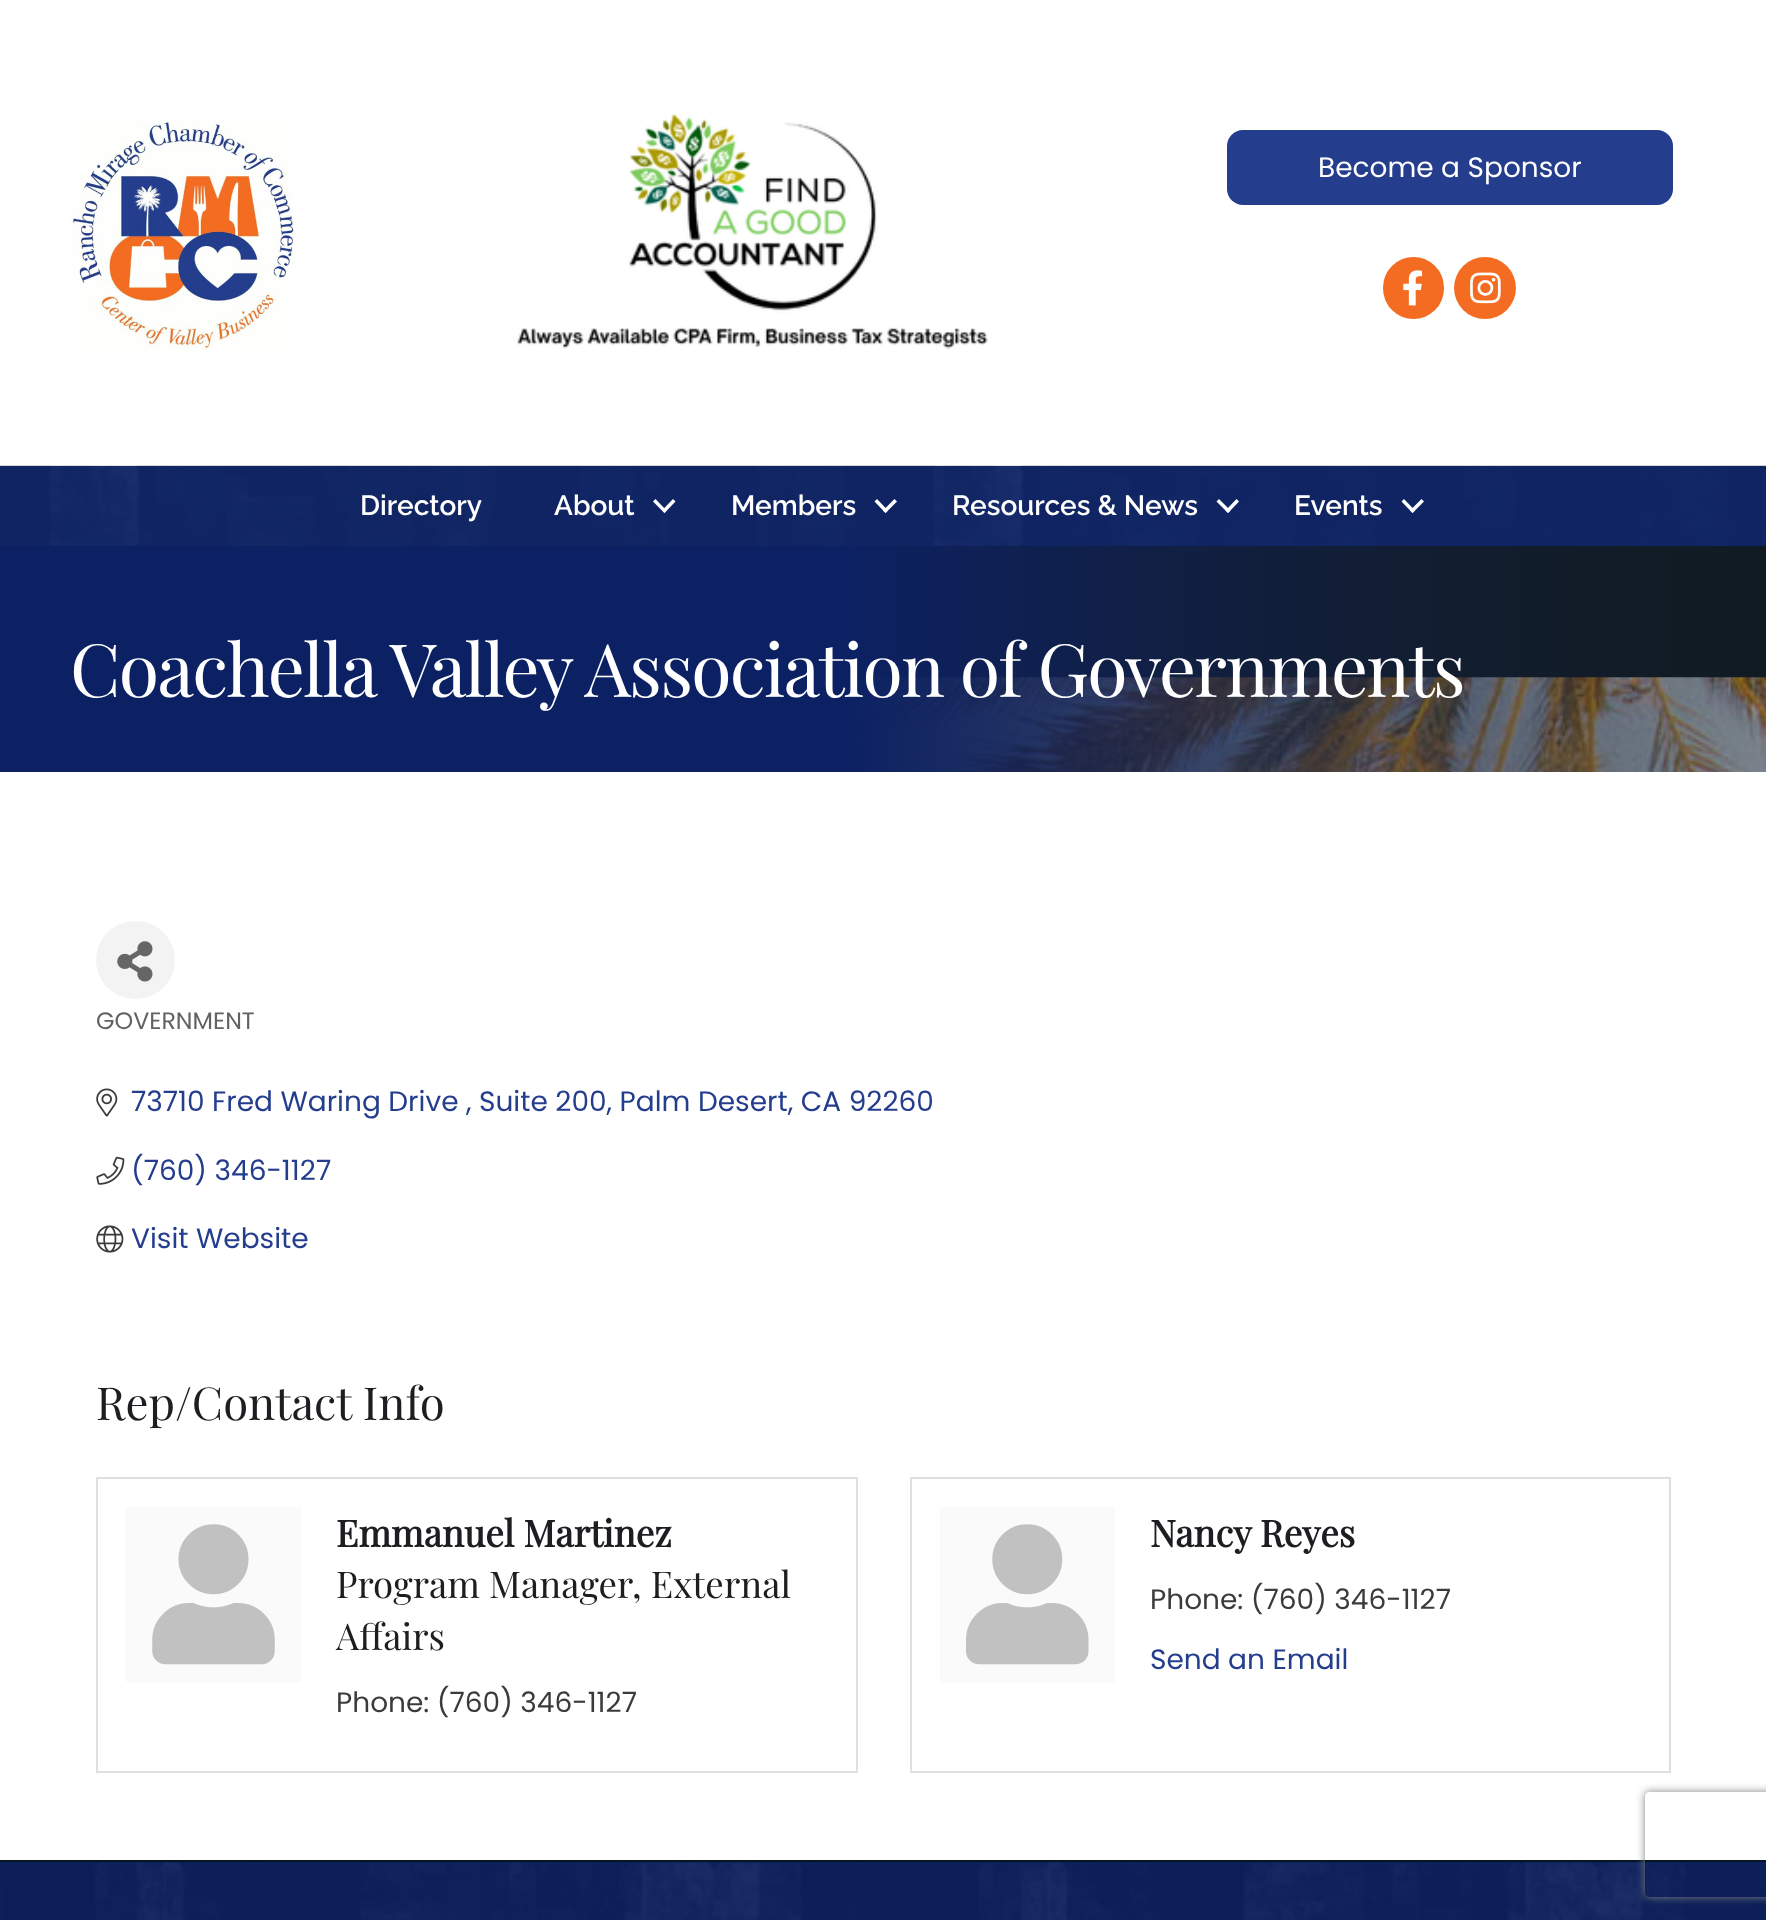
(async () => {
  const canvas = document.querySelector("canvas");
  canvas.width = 1766;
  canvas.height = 1920;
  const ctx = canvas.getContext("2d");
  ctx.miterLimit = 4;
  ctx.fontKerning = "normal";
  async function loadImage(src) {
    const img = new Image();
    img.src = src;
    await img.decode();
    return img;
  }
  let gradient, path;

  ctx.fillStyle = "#ffffff";
  ctx.fillRect(0, 0, 1766, 1920);
  ctx.drawImage(await loadImage("img/1.png"), 69, 119, 225, 232);
  ctx.drawImage(await loadImage("img/2.png"), 517, 113, 471, 236);
  ctx.fillStyle = "#243d8d";
  ctx.beginPath();
  ctx.roundRect(1227, 130, 446, 75, 16);
  ctx.fill();
  ctx.fillStyle = "#f46c22";
  ctx.beginPath();
  ctx.roundRect(1383, 257, 61, 62, 30.5);
  ctx.fill();
  ctx.drawImage(await loadImage("img/3.png"), 1403, 270, 20, 36);
  ctx.beginPath();
  ctx.arc(1485, 288, 31, 0, Math.PI * 2);
  ctx.fill();
  ctx.drawImage(await loadImage("img/4.png"), 1470, 272, 31, 32);
  ctx.fillStyle = "#12286e";
  ctx.fillRect(0, 466, 1766, 80);
  ctx.drawImage(await loadImage("img/5.png"), 0, 465, 1766, 81);
  ctx.fillStyle = "#ffffff";
  path = new Path2D("M673 499L675.5 501.5L664.5 513L662 510.5Z");
  ctx.fill(path);
  path = new Path2D("M655.5 499L666.5 510.5L664.5 513L653 501.5Z");
  ctx.fill(path);
  path = new Path2D("M894.5 499L897 501.5L885.5 513L883 510.5Z");
  ctx.fill(path);
  path = new Path2D("M877 499L888 510.5L885.5 513L874.5 501.5Z");
  ctx.fill(path);
  path = new Path2D("M1236.5 499L1239 501.5L1228 513L1225.5 510.5Z");
  ctx.fill(path);
  path = new Path2D("M1219 499L1230.5 510.5L1228 513L1216.5 501.5Z");
  ctx.fill(path);
  path = new Path2D("M1421.5 499L1424 501.5L1412.5 513L1410 510.5Z");
  ctx.fill(path);
  path = new Path2D("M1404 499L1415 510.5L1412.5 513L1401.5 501.5Z");
  ctx.fill(path);
  ctx.fillStyle = "#051622";
  ctx.fillRect(857, 546, 909, 132);
  ctx.drawImage(await loadImage("img/6.png"), 857, 677, 909, 95);
  gradient = ctx.createLinearGradient(0, 659, 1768, 659);
  gradient.addColorStop(0.48, "#0c2163");
  gradient.addColorStop(1, "rgba(35, 35, 35, 0.36)");
  ctx.fillStyle = gradient;
  ctx.fillRect(0, 546, 1766, 226);
  ctx.fillStyle = "#f3f3f3";
  ctx.beginPath();
  ctx.roundRect(96, 921, 79, 78, 39);
  ctx.fill();
  ctx.drawImage(await loadImage("img/7.png"), 117, 941, 36, 41);
  ctx.drawImage(await loadImage("img/8.png"), 96, 1088, 22, 29);
  ctx.drawImage(await loadImage("img/9.png"), 96, 1156, 29, 29);
  ctx.drawImage(await loadImage("img/10.png"), 96, 1225, 28, 28);
  ctx.strokeStyle = "#dfdfdf";
  ctx.lineWidth = 2;
  ctx.strokeRect(97, 1478, 760, 294);
  ctx.fillStyle = "#fafafa";
  ctx.fillRect(126, 1507, 175, 175);
  ctx.drawImage(await loadImage("img/11.png"), 152, 1524, 123, 141);
  ctx.strokeRect(911, 1478, 759, 294);
  ctx.fillRect(940, 1507, 175, 175);
  ctx.drawImage(await loadImage("img/12.png"), 966, 1524, 123, 141);
  ctx.fillStyle = "#0c2163";
  ctx.fillRect(0, 1862, 1766, 58);
  ctx.drawImage(await loadImage("img/13.png"), 0, 1862, 1766, 58);
  ctx.fillStyle = "#051622";
  ctx.fillRect(0, 1860, 1766, 2);
  ctx.save();
  path = new Path2D("M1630 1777H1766V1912H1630ZM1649 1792H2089C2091 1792 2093 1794 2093 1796V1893C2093 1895 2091 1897 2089 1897H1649C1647 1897 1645 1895 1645 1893V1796C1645 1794 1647 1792 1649 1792Z");
  ctx.clip(path, "evenodd");
  ctx.fillStyle = "#808080";
  ctx.filter = "blur(4.5px)";
  ctx.beginPath();
  ctx.roundRect(1645, 1792, 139, 105, 4);
  ctx.fill();
  ctx.filter = "none";
  ctx.restore();
  ctx.font = "28px Poppins";
  ctx.fillStyle = "#ffffff";
  ctx.fillText("Become a Sponsor", 1318, 177);
  ctx.font = "100 28px Raleway";
  for (const [text, x, y] of [
    ["Directory", 360, 515],
    ["About", 554, 515],
    ["Members", 731, 515],
    ["Resources & News", 952, 515],
    ["Events", 1294, 515],
  ]) {
    ctx.fillText(text, x, y);
  }
  ctx.letterSpacing = "-1.75px";
  ctx.font = "73.5px Playfair Display";
  ctx.fillText("Coachella Valley Association of Governments", 70, 697);
  ctx.letterSpacing = "0px";
  ctx.font = "23.75px Poppins";
  ctx.fillStyle = "#626262";
  ctx.fillText("GOVERNMENT", 96, 1029);
  ctx.font = "28px Poppins";
  ctx.fillStyle = "#243d8d";
  for (const [text, x, y] of [
    ["73710 Fred Waring Drive , Suite 200, Palm Desert, CA 92260", 131, 1111],
    ["(760) 346-1127", 131, 1180],
    ["Visit Website", 131, 1248],
  ]) {
    ctx.fillText(text, x, y);
  }
  ctx.font = "45.5px Playfair Display";
  ctx.fillStyle = "#1d1e21";
  ctx.fillText("Rep/Contact Info", 96, 1420);
  ctx.font = "bold 36.75px Playfair Display";
  ctx.fillText("Emmanuel Martinez", 336, 1547);
  ctx.font = "36.75px Playfair Display";
  ctx.fillText("Program Manager, External", 336, 1598);
  ctx.fillText("Affairs", 336, 1650);
  ctx.font = "28px Poppins";
  ctx.fillStyle = "#3b3b3b";
  ctx.fillText("Phone: (760) 346-1127", 336, 1712);
  ctx.font = "bold 36.75px Playfair Display";
  ctx.fillStyle = "#1d1e21";
  ctx.fillText("Nancy Reyes", 1150, 1547);
  ctx.font = "28px Poppins";
  ctx.fillStyle = "#3b3b3b";
  ctx.fillText("Phone: (760) 346-1127", 1150, 1609);
  ctx.fillStyle = "#243d8d";
  ctx.fillText("Send an Email", 1150, 1669);
})();
